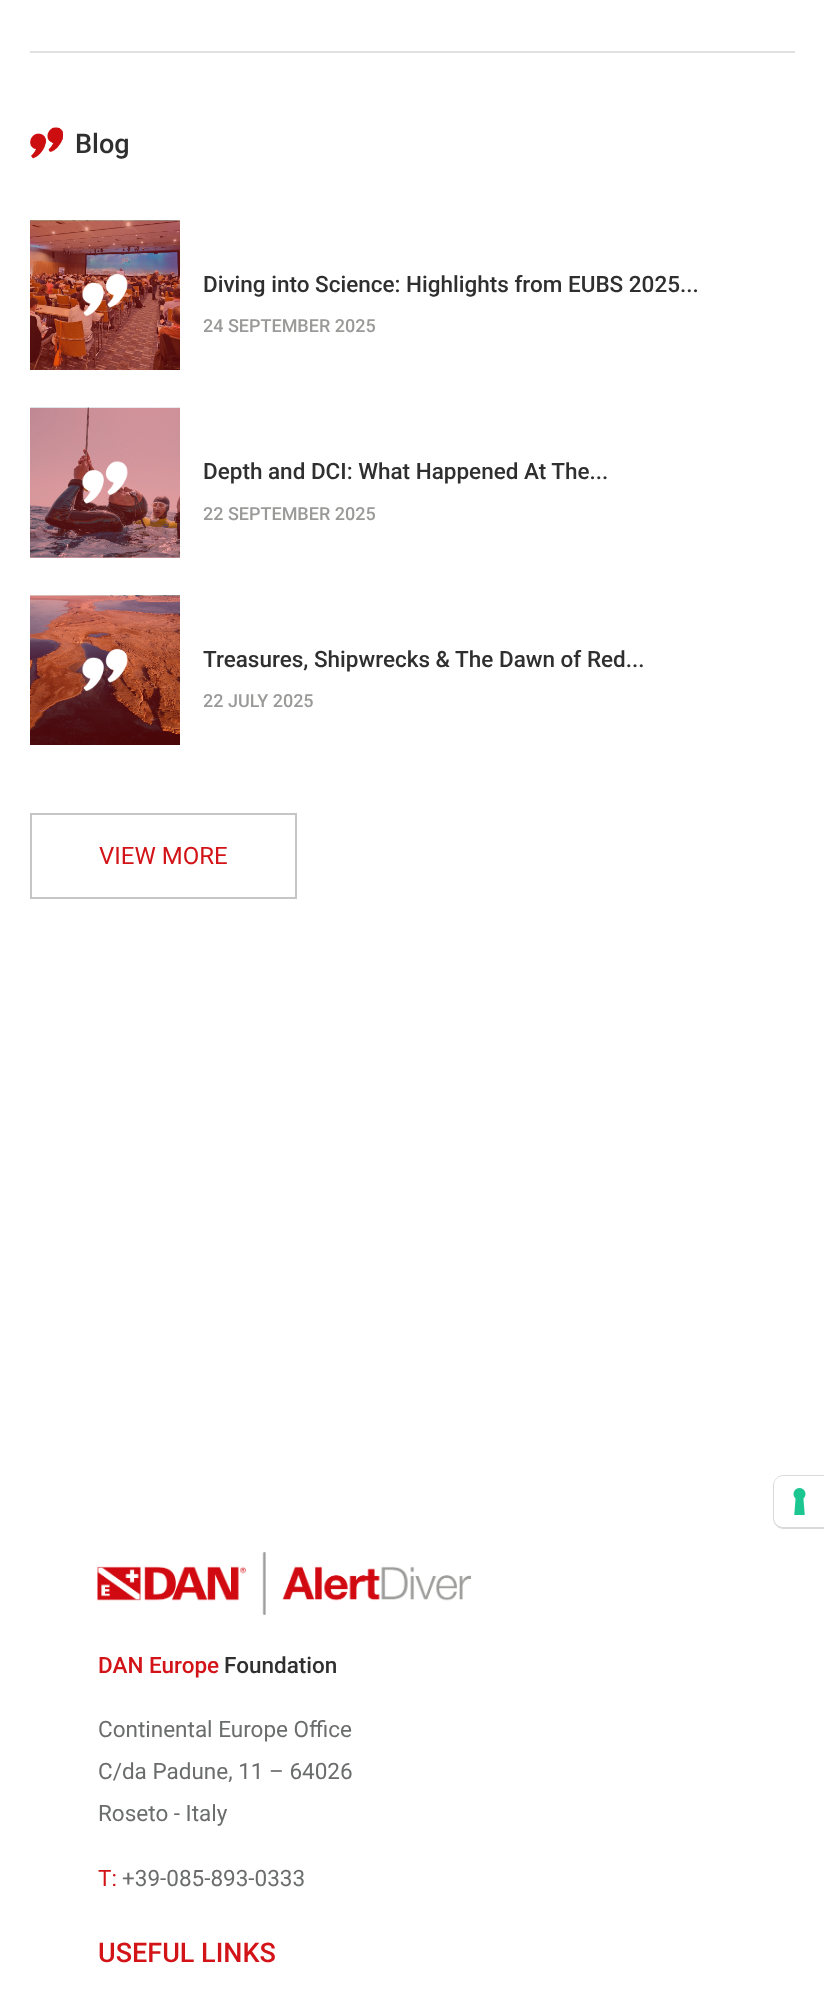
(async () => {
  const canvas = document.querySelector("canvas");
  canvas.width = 824;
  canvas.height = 2002;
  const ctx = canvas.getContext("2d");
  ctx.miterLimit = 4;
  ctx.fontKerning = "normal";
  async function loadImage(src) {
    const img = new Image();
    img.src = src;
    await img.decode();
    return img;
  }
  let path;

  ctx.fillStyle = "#ffffff";
  ctx.fillRect(0, 0, 824, 2002);
  ctx.fillStyle = "#efacae";
  ctx.fillRect(30, 557, 150, 1);
  ctx.fillStyle = "#e1e1e1";
  ctx.fillRect(30, 51, 765, 2);
  ctx.drawImage(await loadImage("img/1.png"), 30, 127, 33, 32);
  ctx.drawImage(await loadImage("img/2.png"), 30, 220, 150, 150);
  ctx.drawImage(await loadImage("img/3.png"), 82, 274, 46, 42);
  ctx.drawImage(await loadImage("img/4.png"), 30, 407, 150, 151);
  ctx.drawImage(await loadImage("img/5.png"), 82, 461, 46, 43);
  ctx.drawImage(await loadImage("img/6.png"), 30, 595, 150, 150);
  ctx.drawImage(await loadImage("img/7.png"), 82, 649, 46, 42);
  ctx.strokeStyle = "#c5c5c5";
  ctx.lineWidth = 2;
  ctx.strokeRect(31, 814, 265, 84);
  ctx.drawImage(await loadImage("img/8.png"), 97, 1552, 374, 63);
  path = new Path2D("M784 1476H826V1528H784C778.5 1528 774 1523.5 774 1518V1486C774 1480.5 778.5 1476 784 1476Z");
  ctx.strokeStyle = "#d9d9d9";
  ctx.stroke(path);
  ctx.fillStyle = "#ffffff";
  path = new Path2D("M783 1476H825V1527H783C778 1527 774 1523 774 1518V1485C774 1480 778 1476 783 1476Z");
  ctx.fill(path);
  ctx.drawImage(await loadImage("img/9.png"), 793, 1488, 13, 27);
  ctx.font = "500 27px Roboto";
  ctx.fillStyle = "#2e2f2e";
  ctx.fillText("Blog", 75, 153);
  ctx.font = "500 22.5px Roboto";
  ctx.fillText("Diving into Science: Highlights from EUBS 2025...", 203, 292);
  ctx.font = "500 18px Roboto";
  ctx.fillStyle = "#9a9a99";
  ctx.fillText("24 SEPTEMBER 2025", 203, 332);
  ctx.font = "500 22.5px Roboto";
  ctx.fillStyle = "#2e2f2e";
  ctx.fillText("Depth and DCI: What Happened At The...", 203, 479);
  ctx.font = "500 18px Roboto";
  ctx.fillStyle = "#9a9a99";
  ctx.fillText("22 SEPTEMBER 2025", 203, 520);
  ctx.font = "500 22.5px Roboto";
  ctx.fillStyle = "#2e2f2e";
  ctx.fillText("Treasures, Shipwrecks & The Dawn of Red...", 203, 667);
  ctx.font = "500 18px Roboto";
  ctx.fillStyle = "#9a9a99";
  ctx.fillText("22 JULY 2025", 203, 707);
  ctx.font = "24px Roboto";
  ctx.fillStyle = "#d21317";
  ctx.fillText("VIEW MORE", 99, 864);
  ctx.font = "500 22.5px Roboto";
  ctx.fillText("DAN Europe", 98, 1673);
  ctx.fillStyle = "#2e2f2e";
  ctx.fillText("Foundation", 224, 1673);
  ctx.font = "22.5px Roboto";
  ctx.fillStyle = "#6b6c6c";
  for (const [text, x, y] of [
    ["Continental Europe Office", 98, 1737],
    ["C/da Padune, 11 – 64026", 98, 1779],
    ["Roseto - Italy", 98, 1821],
  ]) {
    ctx.fillText(text, x, y);
  }
  ctx.fillStyle = "#d21317";
  ctx.fillText("T:", 98, 1886);
  ctx.fillStyle = "#6b6c6c";
  ctx.fillText("+39-085-893-0333", 122, 1886);
  ctx.font = "500 27px Roboto";
  ctx.fillStyle = "#d21317";
  ctx.fillText("USEFUL LINKS", 98, 1962);
})();
